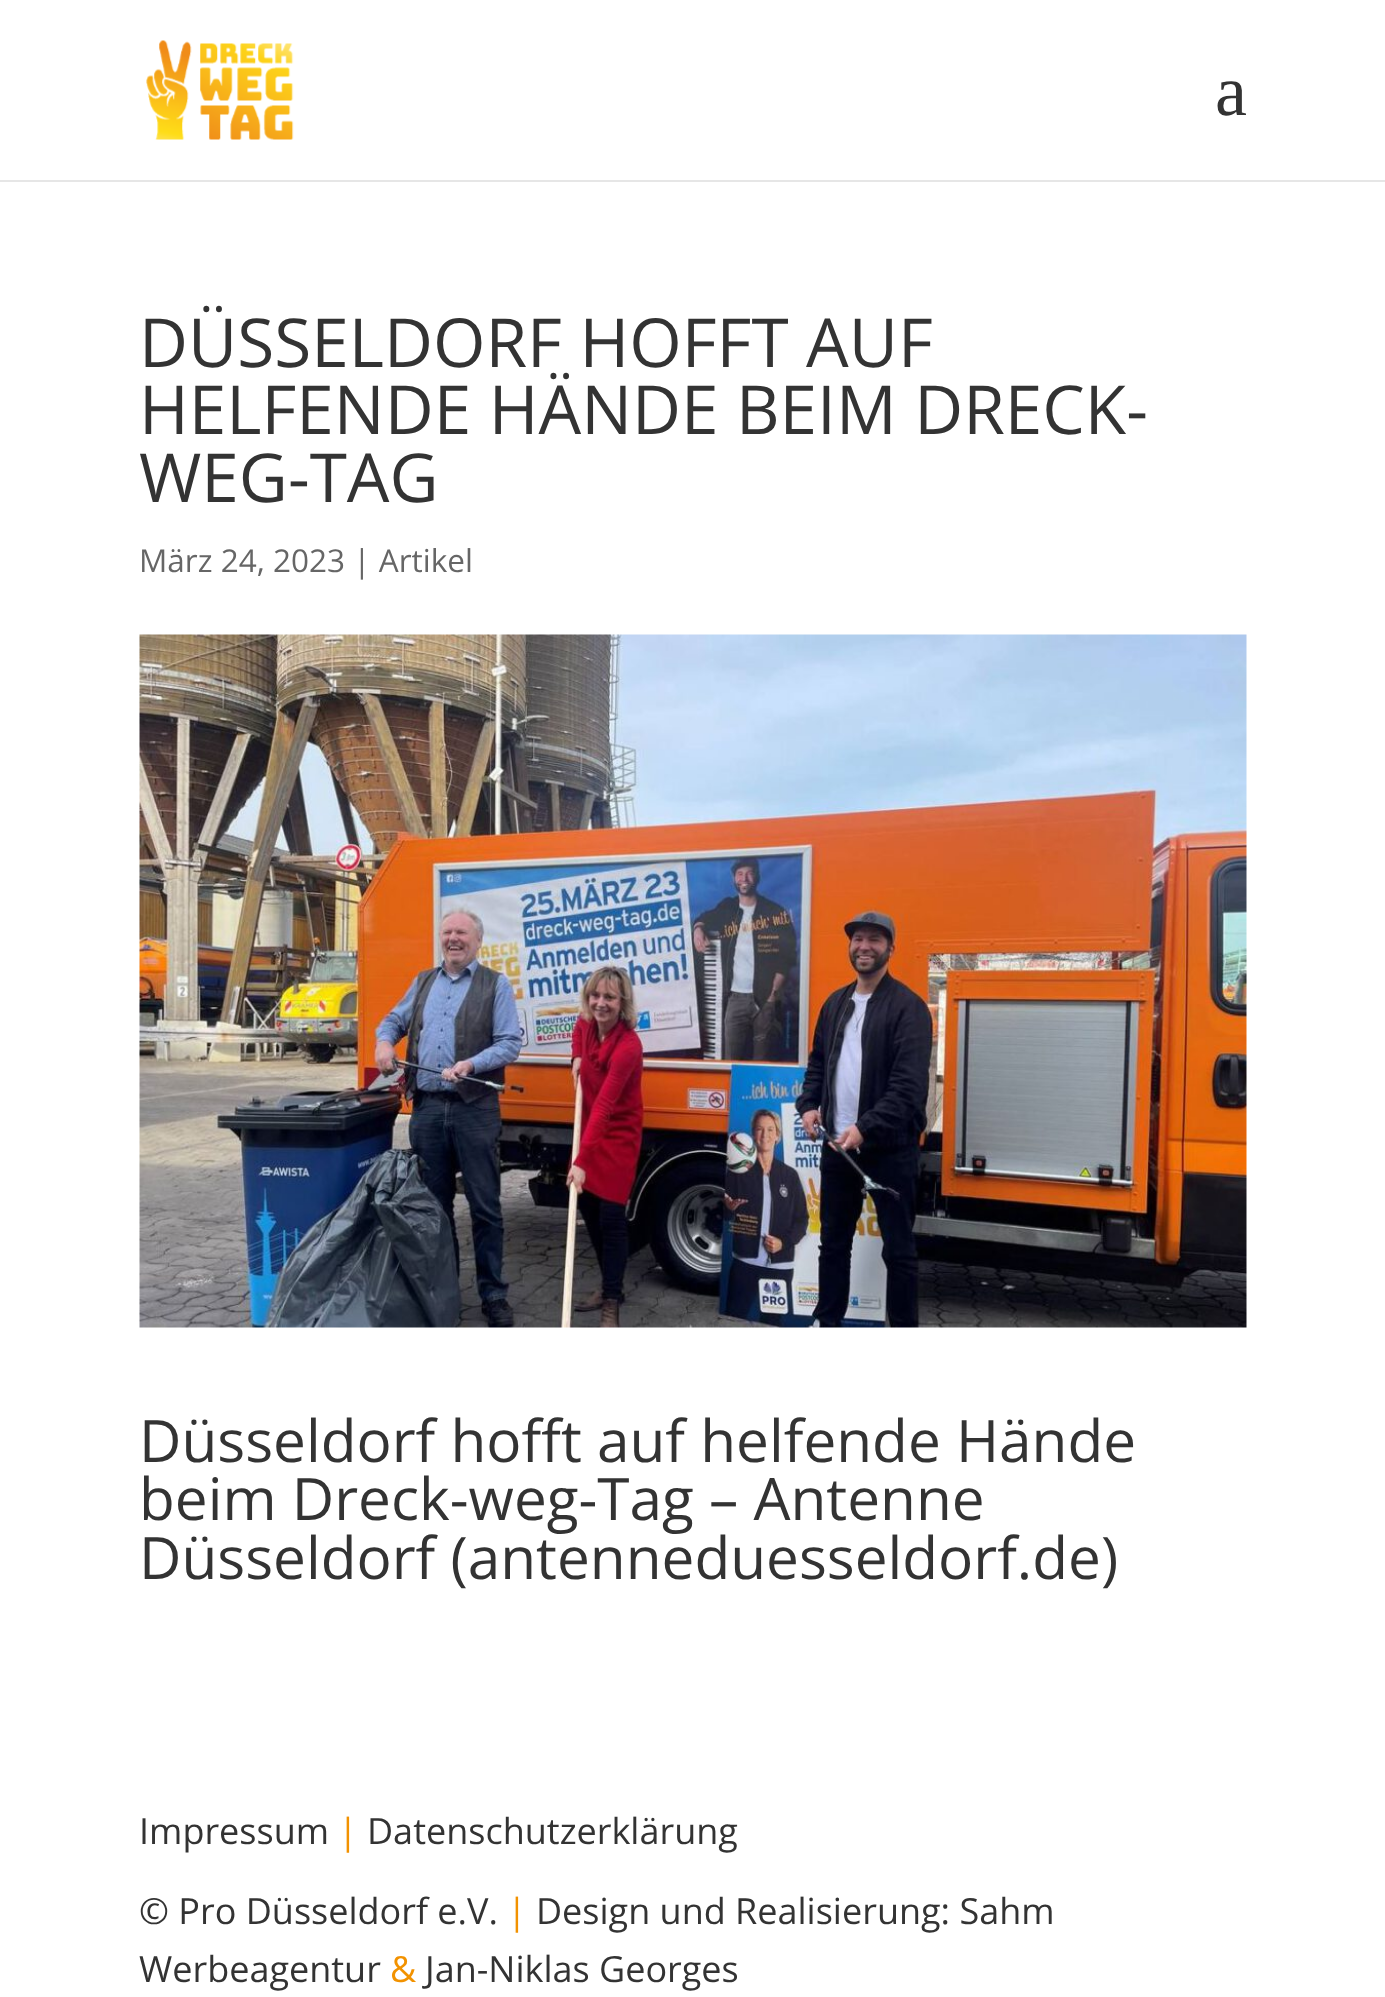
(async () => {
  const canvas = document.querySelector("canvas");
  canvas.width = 1385;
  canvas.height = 1997;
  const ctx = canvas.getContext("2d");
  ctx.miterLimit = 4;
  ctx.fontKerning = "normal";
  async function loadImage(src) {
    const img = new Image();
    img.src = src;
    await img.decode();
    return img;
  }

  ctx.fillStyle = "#ffffff";
  ctx.fillRect(0, 0, 1385, 1997);
  ctx.fillStyle = "#e6e6e6";
  ctx.fillRect(0, 180, 1385, 2);
  ctx.drawImage(await loadImage("img/1.png"), 146, 40, 148, 100);
  ctx.drawImage(await loadImage("img/2.png"), 139, 634, 1108, 694);
  ctx.font = "72px Liberation Serif";
  ctx.fillStyle = "#333333";
  ctx.fillText("a", 1215, 115);
  ctx.font = "67.5px Open Sans";
  for (const [text, x, y] of [
    ["DÜSSELDORF HOFFT AUF", 139, 367],
    ["HELFENDE HÄNDE BEIM DRECK-", 139, 434],
    ["WEG-TAG", 139, 502],
  ]) {
    ctx.fillText(text, x, y);
  }
  ctx.font = "31.5px Open Sans";
  ctx.fillStyle = "#666666";
  ctx.fillText("März 24, 2023 | Artikel", 139, 572);
  ctx.font = "58.5px Open Sans";
  ctx.fillStyle = "#333333";
  for (const [text, x, y] of [
    ["Düsseldorf hofft auf helfende Hände", 139, 1462],
    ["beim Dreck-weg-Tag – Antenne", 139, 1520],
    ["Düsseldorf (antenneduesseldorf.de)", 139, 1579],
  ]) {
    ctx.fillText(text, x, y);
  }
  ctx.font = "36px Open Sans";
  ctx.fillText("Impressum", 139, 1844);
  ctx.fillStyle = "#f29200";
  ctx.fillText("|", 338, 1844);
  ctx.fillStyle = "#333333";
  ctx.fillText("Datenschutzerklärung", 367, 1844);
  ctx.fillText("© Pro Düsseldorf e.V.", 139, 1924);
  ctx.fillStyle = "#f29200";
  ctx.fillText("|", 507, 1924);
  ctx.fillStyle = "#333333";
  ctx.fillText("Design und Realisierung: Sahm", 536, 1924);
  ctx.fillText("Werbeagentur", 139, 1982);
  ctx.fillStyle = "#f29200";
  ctx.fillText("&", 390, 1982);
  ctx.fillStyle = "#333333";
  ctx.fillText("Jan-Niklas Georges", 425, 1982);
})();
